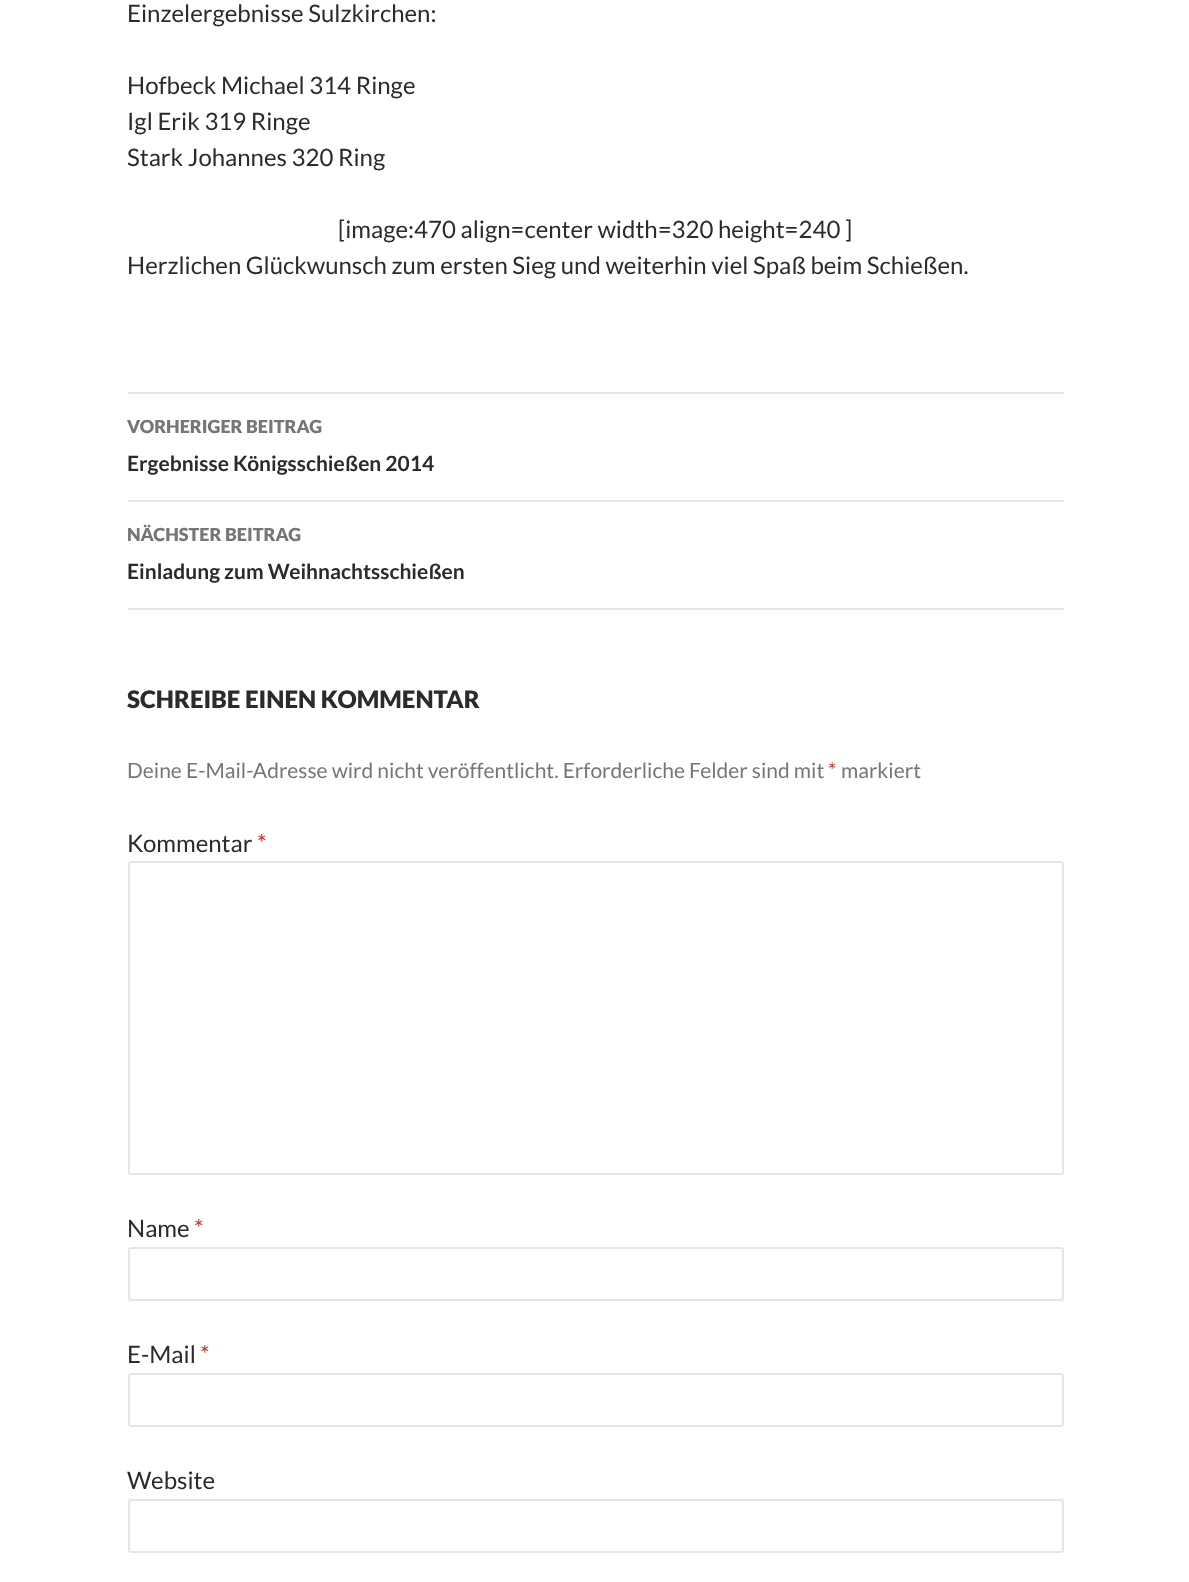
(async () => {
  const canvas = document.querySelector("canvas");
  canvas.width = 1189;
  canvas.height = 1582;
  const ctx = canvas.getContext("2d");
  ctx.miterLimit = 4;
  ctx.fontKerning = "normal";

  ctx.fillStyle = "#ffffff";
  ctx.fillRect(0, 0, 1189, 1582);
  for (const [x, y, w, h, color] of [
    [128, 392, 936, 2, "#e6e6e6"],
    [128, 500, 936, 2, "#e6e6e6"],
    [128, 608, 936, 2, "#e6e6e6"],
  ]) {
    ctx.fillStyle = color;
    ctx.fillRect(x, y, w, h);
  }
  ctx.beginPath();
  ctx.roundRect(129, 862, 934, 312, 2);
  ctx.strokeStyle = "#e6e6e6";
  ctx.lineWidth = 2;
  ctx.stroke();
  ctx.beginPath();
  ctx.roundRect(129, 1248, 934, 52, 2);
  ctx.stroke();
  ctx.beginPath();
  ctx.roundRect(129, 1374, 934, 52, 2);
  ctx.stroke();
  ctx.beginPath();
  ctx.roundRect(129, 1500, 934, 52, 2);
  ctx.stroke();
  ctx.font = "24px Lato";
  ctx.fillStyle = "#2b2b2b";
  for (const [text, x, y] of [
    ["Einzelergebnisse Sulzkirchen:", 127, 22],
    ["Hofbeck Michael 314 Ringe", 127, 94],
    ["Igl Erik 319 Ringe", 127, 130],
    ["Stark Johannes 320 Ring", 127, 166],
    ["[image:470 align=center width=320 height=240 ]", 338, 238],
    ["Herzlichen Glückwunsch zum ersten Sieg und weiterhin viel Spaß beim Schießen.", 127, 274],
  ]) {
    ctx.fillText(text, x, y);
  }
  ctx.font = "900 18px Lato";
  ctx.fillStyle = "#767676";
  ctx.fillText("VORHERIGER BEITRAG", 127, 433);
  ctx.font = "bold 21px Lato";
  ctx.fillStyle = "#2b2b2b";
  ctx.fillText("Ergebnisse Königsschießen 2014", 127, 471);
  ctx.font = "900 18px Lato";
  ctx.fillStyle = "#767676";
  ctx.fillText("NÄCHSTER BEITRAG", 127, 541);
  ctx.font = "bold 21px Lato";
  ctx.fillStyle = "#2b2b2b";
  ctx.fillText("Einladung zum Weihnachtsschießen", 127, 579);
  ctx.font = "900 24px Lato";
  ctx.fillText("SCHREIBE EINEN KOMMENTAR", 127, 708);
  ctx.font = "21px Lato";
  ctx.fillStyle = "#767676";
  ctx.fillText("Deine E-Mail-Adresse wird nicht veröffentlicht. Erforderliche Felder sind mit", 127, 778);
  ctx.fillStyle = "#c0392b";
  ctx.fillText("*", 828, 778);
  ctx.fillStyle = "#767676";
  ctx.fillText("markiert", 841, 778);
  ctx.font = "24px Lato";
  ctx.fillStyle = "#2b2b2b";
  ctx.fillText("Kommentar", 127, 852);
  ctx.fillStyle = "#c0392b";
  ctx.fillText("*", 257, 852);
  ctx.fillStyle = "#2b2b2b";
  ctx.fillText("Name", 127, 1237);
  ctx.fillStyle = "#c0392b";
  ctx.fillText("*", 194, 1237);
  ctx.fillStyle = "#2b2b2b";
  ctx.fillText("E-Mail", 127, 1363);
  ctx.fillStyle = "#c0392b";
  ctx.fillText("*", 200, 1363);
  ctx.fillStyle = "#2b2b2b";
  ctx.fillText("Website", 127, 1489);
})();
